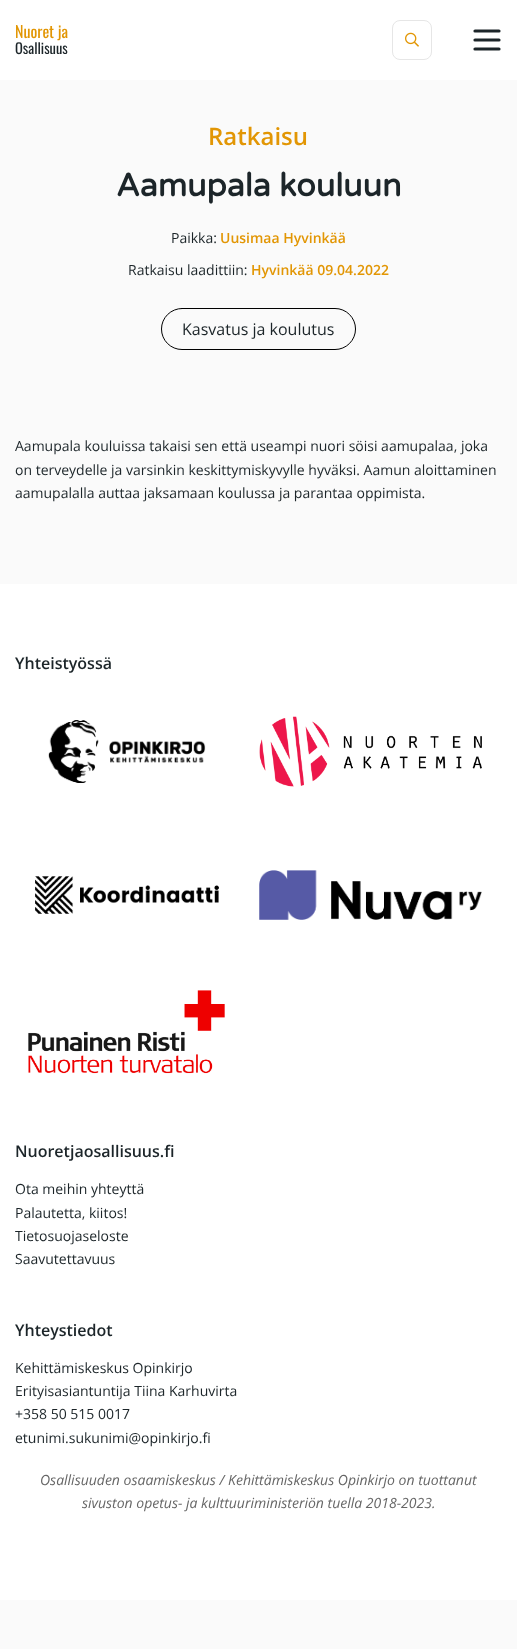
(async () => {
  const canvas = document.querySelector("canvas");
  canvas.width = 517;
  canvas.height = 1649;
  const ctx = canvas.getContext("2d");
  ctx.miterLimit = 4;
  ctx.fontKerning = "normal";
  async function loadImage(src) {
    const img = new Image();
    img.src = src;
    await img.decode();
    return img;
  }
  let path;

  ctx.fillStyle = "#fafafa";
  ctx.fillRect(0, 0, 517, 1649);
  ctx.fillStyle = "#ffffff";
  ctx.fillRect(0, 0, 517, 80);
  ctx.beginPath();
  ctx.roundRect(392.5, 20.5, 39, 39, 7.5);
  ctx.strokeStyle = "#e6e6e6";
  ctx.stroke();
  ctx.drawImage(await loadImage("img/1.png"), 405, 32, 14, 15);
  path = new Path2D("M475 31H499M475 40H499M475 49H499");
  ctx.strokeStyle = "#1c2529";
  ctx.lineWidth = 3.2;
  ctx.lineCap = "round";
  ctx.stroke(path);
  ctx.beginPath();
  ctx.roundRect(161.5, 308.5, 194, 41, 20.5);
  ctx.strokeStyle = "#000000";
  ctx.lineWidth = 1;
  ctx.stroke();
  ctx.fillRect(0, 584, 517, 1016);
  ctx.drawImage(await loadImage("img/2.png"), 48, 720, 158, 63);
  ctx.drawImage(await loadImage("img/3.png"), 259, 716, 223, 71);
  ctx.drawImage(await loadImage("img/4.png"), 35, 876, 184, 38);
  ctx.drawImage(await loadImage("img/5.png"), 259, 870, 223, 50);
  ctx.drawImage(await loadImage("img/6.png"), 28, 990, 197, 84);
  ctx.font = "16px Oswald";
  ctx.fillStyle = "#e29604";
  ctx.fillText("Nuoret ja", 15, 38);
  ctx.font = "14.5px Oswald";
  ctx.fillStyle = "#1c2529";
  ctx.fillText("Osallisuus", 15, 54);
  ctx.font = "600 24px Open Sans";
  ctx.fillStyle = "#e29604";
  ctx.fillText("Ratkaisu", 208, 145);
  ctx.font = "bold 32px Varela Round";
  ctx.fillStyle = "#1c2529";
  ctx.fillText("Aamupala kouluun", 116, 196);
  ctx.font = "14px Open Sans";
  ctx.fillText("Paikka:", 171, 243);
  ctx.font = "600 14px Open Sans";
  ctx.fillStyle = "#e29604";
  ctx.fillText("Uusimaa Hyvinkää", 220, 243);
  ctx.font = "14px Open Sans";
  ctx.fillStyle = "#1c2529";
  ctx.fillText("Ratkaisu laadittiin:", 128, 275);
  ctx.font = "600 14px Open Sans";
  ctx.fillStyle = "#e29604";
  ctx.fillText("Hyvinkää 09.04.2022", 251, 275);
  ctx.font = "16px Open Sans";
  ctx.fillStyle = "#1c2529";
  ctx.fillText("Kasvatus ja koulutus", 182, 335);
  ctx.font = "14px Open Sans";
  for (const [text, x, y] of [
    ["Aamupala kouluissa takaisi sen että useampi nuori söisi aamupalaa, joka", 15, 451],
    ["on terveydelle ja varsinkin keskittymiskyvylle hyväksi. Aamun aloittaminen", 15, 475],
    ["aamupalalla auttaa jaksamaan koulussa ja parantaa oppimista.", 15, 498],
  ]) {
    ctx.fillText(text, x, y);
  }
  ctx.font = "600 16px Open Sans";
  ctx.fillText("Yhteistyössä", 15, 669);
  ctx.fillText("Nuoretjaosallisuus.fi", 15, 1157);
  ctx.font = "14px Open Sans";
  for (const [text, x, y] of [
    ["Ota meihin yhteyttä", 15, 1194],
    ["Palautetta, kiitos!", 15, 1218],
    ["Tietosuojaseloste", 15, 1241],
    ["Saavutettavuus", 15, 1264],
  ]) {
    ctx.fillText(text, x, y);
  }
  ctx.font = "600 16px Open Sans";
  ctx.fillText("Yhteystiedot", 15, 1336);
  ctx.font = "14px Open Sans";
  for (const [text, x, y] of [
    ["Kehittämiskeskus Opinkirjo", 15, 1373],
    ["Erityisasiantuntija Tiina Karhuvirta", 15, 1396],
    ["+358 50 515 0017", 15, 1419],
    ["etunimi.sukunimi@opinkirjo.fi", 15, 1443],
  ]) {
    ctx.fillText(text, x, y);
  }
  ctx.font = "italic 14px Open Sans";
  ctx.fillStyle = "#666666";
  ctx.fillText("Osallisuuden osaamiskeskus / Kehittämiskeskus Opinkirjo on tuottanut", 40, 1485);
  ctx.fillText("sivuston opetus- ja kulttuuriministeriön tuella 2018-2023.", 82, 1508);
})();
